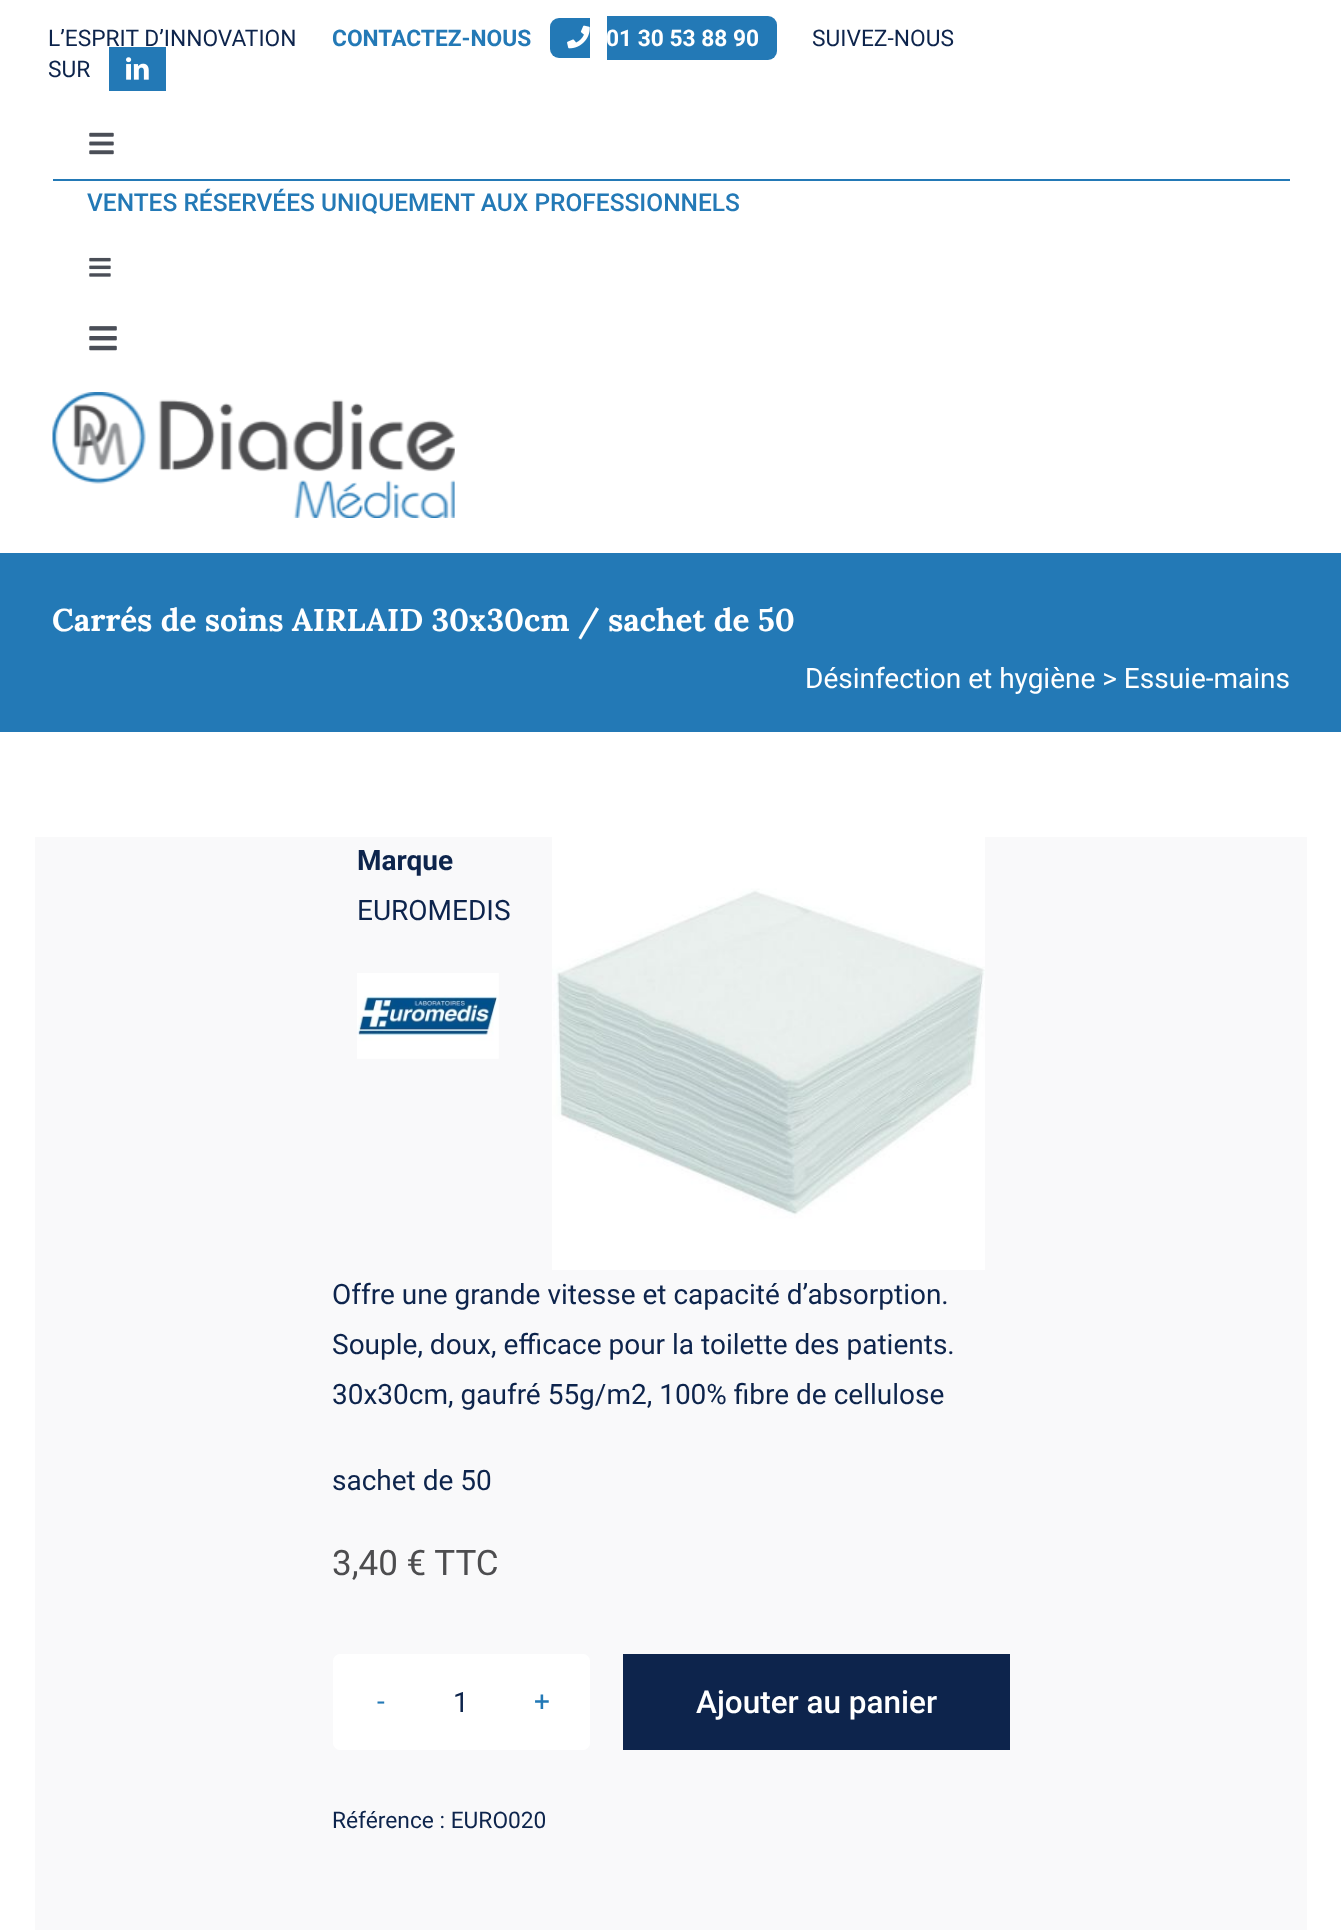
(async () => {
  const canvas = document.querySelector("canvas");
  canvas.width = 1341;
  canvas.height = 1930;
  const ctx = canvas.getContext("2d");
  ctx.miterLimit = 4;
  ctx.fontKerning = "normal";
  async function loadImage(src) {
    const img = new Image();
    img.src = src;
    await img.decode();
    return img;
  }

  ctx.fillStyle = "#ffffff";
  ctx.fillRect(0, 0, 1341, 1930);
  ctx.fillStyle = "#2379b6";
  ctx.beginPath();
  ctx.roundRect(550, 18, 40, 40, [9, 0, 0, 9]);
  ctx.fill();
  ctx.beginPath();
  ctx.roundRect(607, 16, 170, 44, [0, 9, 9, 0]);
  ctx.fill();
  ctx.drawImage(await loadImage("img/1.png"), 567, 25, 23, 24);
  ctx.fillRect(109, 47, 57, 44);
  ctx.drawImage(await loadImage("img/2.png"), 126, 57, 23, 23);
  ctx.drawImage(await loadImage("img/3.png"), 89, 132, 25, 23);
  ctx.fillRect(53, 179, 1237, 2);
  ctx.drawImage(await loadImage("img/4.png"), 89, 257, 22, 20);
  ctx.drawImage(await loadImage("img/5.png"), 89, 326, 28, 25);
  ctx.drawImage(await loadImage("img/6.png"), 52, 392, 403, 126);
  ctx.fillRect(0, 553, 1341, 179);
  ctx.fillStyle = "#f9f9fa";
  ctx.fillRect(35, 837, 1272, 1093);
  ctx.drawImage(await loadImage("img/7.png"), 357, 973, 142, 86);
  ctx.drawImage(await loadImage("img/8.png"), 552, 837, 433, 433);
  ctx.fillStyle = "#ffffff";
  ctx.beginPath();
  ctx.roundRect(333, 1654, 96, 96, [7, 0, 0, 7]);
  ctx.fill();
  ctx.fillRect(429, 1654, 65, 96);
  ctx.beginPath();
  ctx.roundRect(494, 1654, 96, 96, [0, 7, 7, 0]);
  ctx.fill();
  ctx.fillStyle = "#0d244c";
  ctx.fillRect(623, 1654, 387, 96);
  ctx.font = "22.75px Roboto";
  ctx.fillText("L’ESPRIT D’INNOVATION", 48, 46);
  ctx.font = "bold 22.75px Roboto";
  ctx.fillStyle = "#2379b6";
  ctx.fillText("CONTACTEZ-NOUS", 332, 46);
  ctx.fillStyle = "#ffffff";
  ctx.fillText("01 30 53 88 90", 606, 46);
  ctx.font = "22.75px Roboto";
  ctx.fillStyle = "#0d244c";
  ctx.fillText("SUIVEZ-NOUS", 812, 46);
  ctx.fillText("SUR", 48, 77);
  ctx.font = "500 24.5px Roboto";
  ctx.fillStyle = "#2379b6";
  ctx.fillText("VENTES RÉSERVÉES UNIQUEMENT AUX PROFESSIONNELS", 87, 211);
  ctx.font = "bold 31.5px Lora";
  ctx.fillStyle = "#ffffff";
  ctx.fillText("Carrés de soins AIRLAID 30x30cm / sachet de 50", 52, 631);
  ctx.font = "28px Roboto";
  ctx.fillText("Désinfection et hygiène > Essuie-mains", 805, 688);
  ctx.font = "bold 28px Roboto";
  ctx.fillStyle = "#0d244c";
  ctx.fillText("Marque", 357, 870);
  ctx.font = "28px Roboto";
  for (const [text, x, y] of [
    ["EUROMEDIS", 357, 920],
    ["Offre une grande vitesse et capacité d’absorption.", 332, 1304],
    ["Souple, doux, efficace pour la toilette des patients.", 332, 1354],
    ["30x30cm, gaufré 55g/m2, 100% fibre de cellulose", 332, 1404],
    ["sachet de 50", 332, 1490],
  ]) {
    ctx.fillText(text, x, y);
  }
  ctx.font = "35px Roboto";
  ctx.fillStyle = "#4d4d4f";
  ctx.fillText("3,40 € TTC", 332, 1575);
  ctx.font = "28px Roboto";
  ctx.fillStyle = "#2379b6";
  ctx.fillText("-", 377, 1711);
  ctx.fillStyle = "#0d244c";
  ctx.fillText("1", 453, 1712);
  ctx.fillStyle = "#2379b6";
  ctx.fillText("+", 534, 1711);
  ctx.font = "500 31.5px Roboto";
  ctx.fillStyle = "#ffffff";
  ctx.fillText("Ajouter au panier", 696, 1713);
  ctx.font = "22.75px Roboto";
  ctx.fillStyle = "#0d244c";
  ctx.fillText("Référence : EURO020", 332, 1828);
})();
